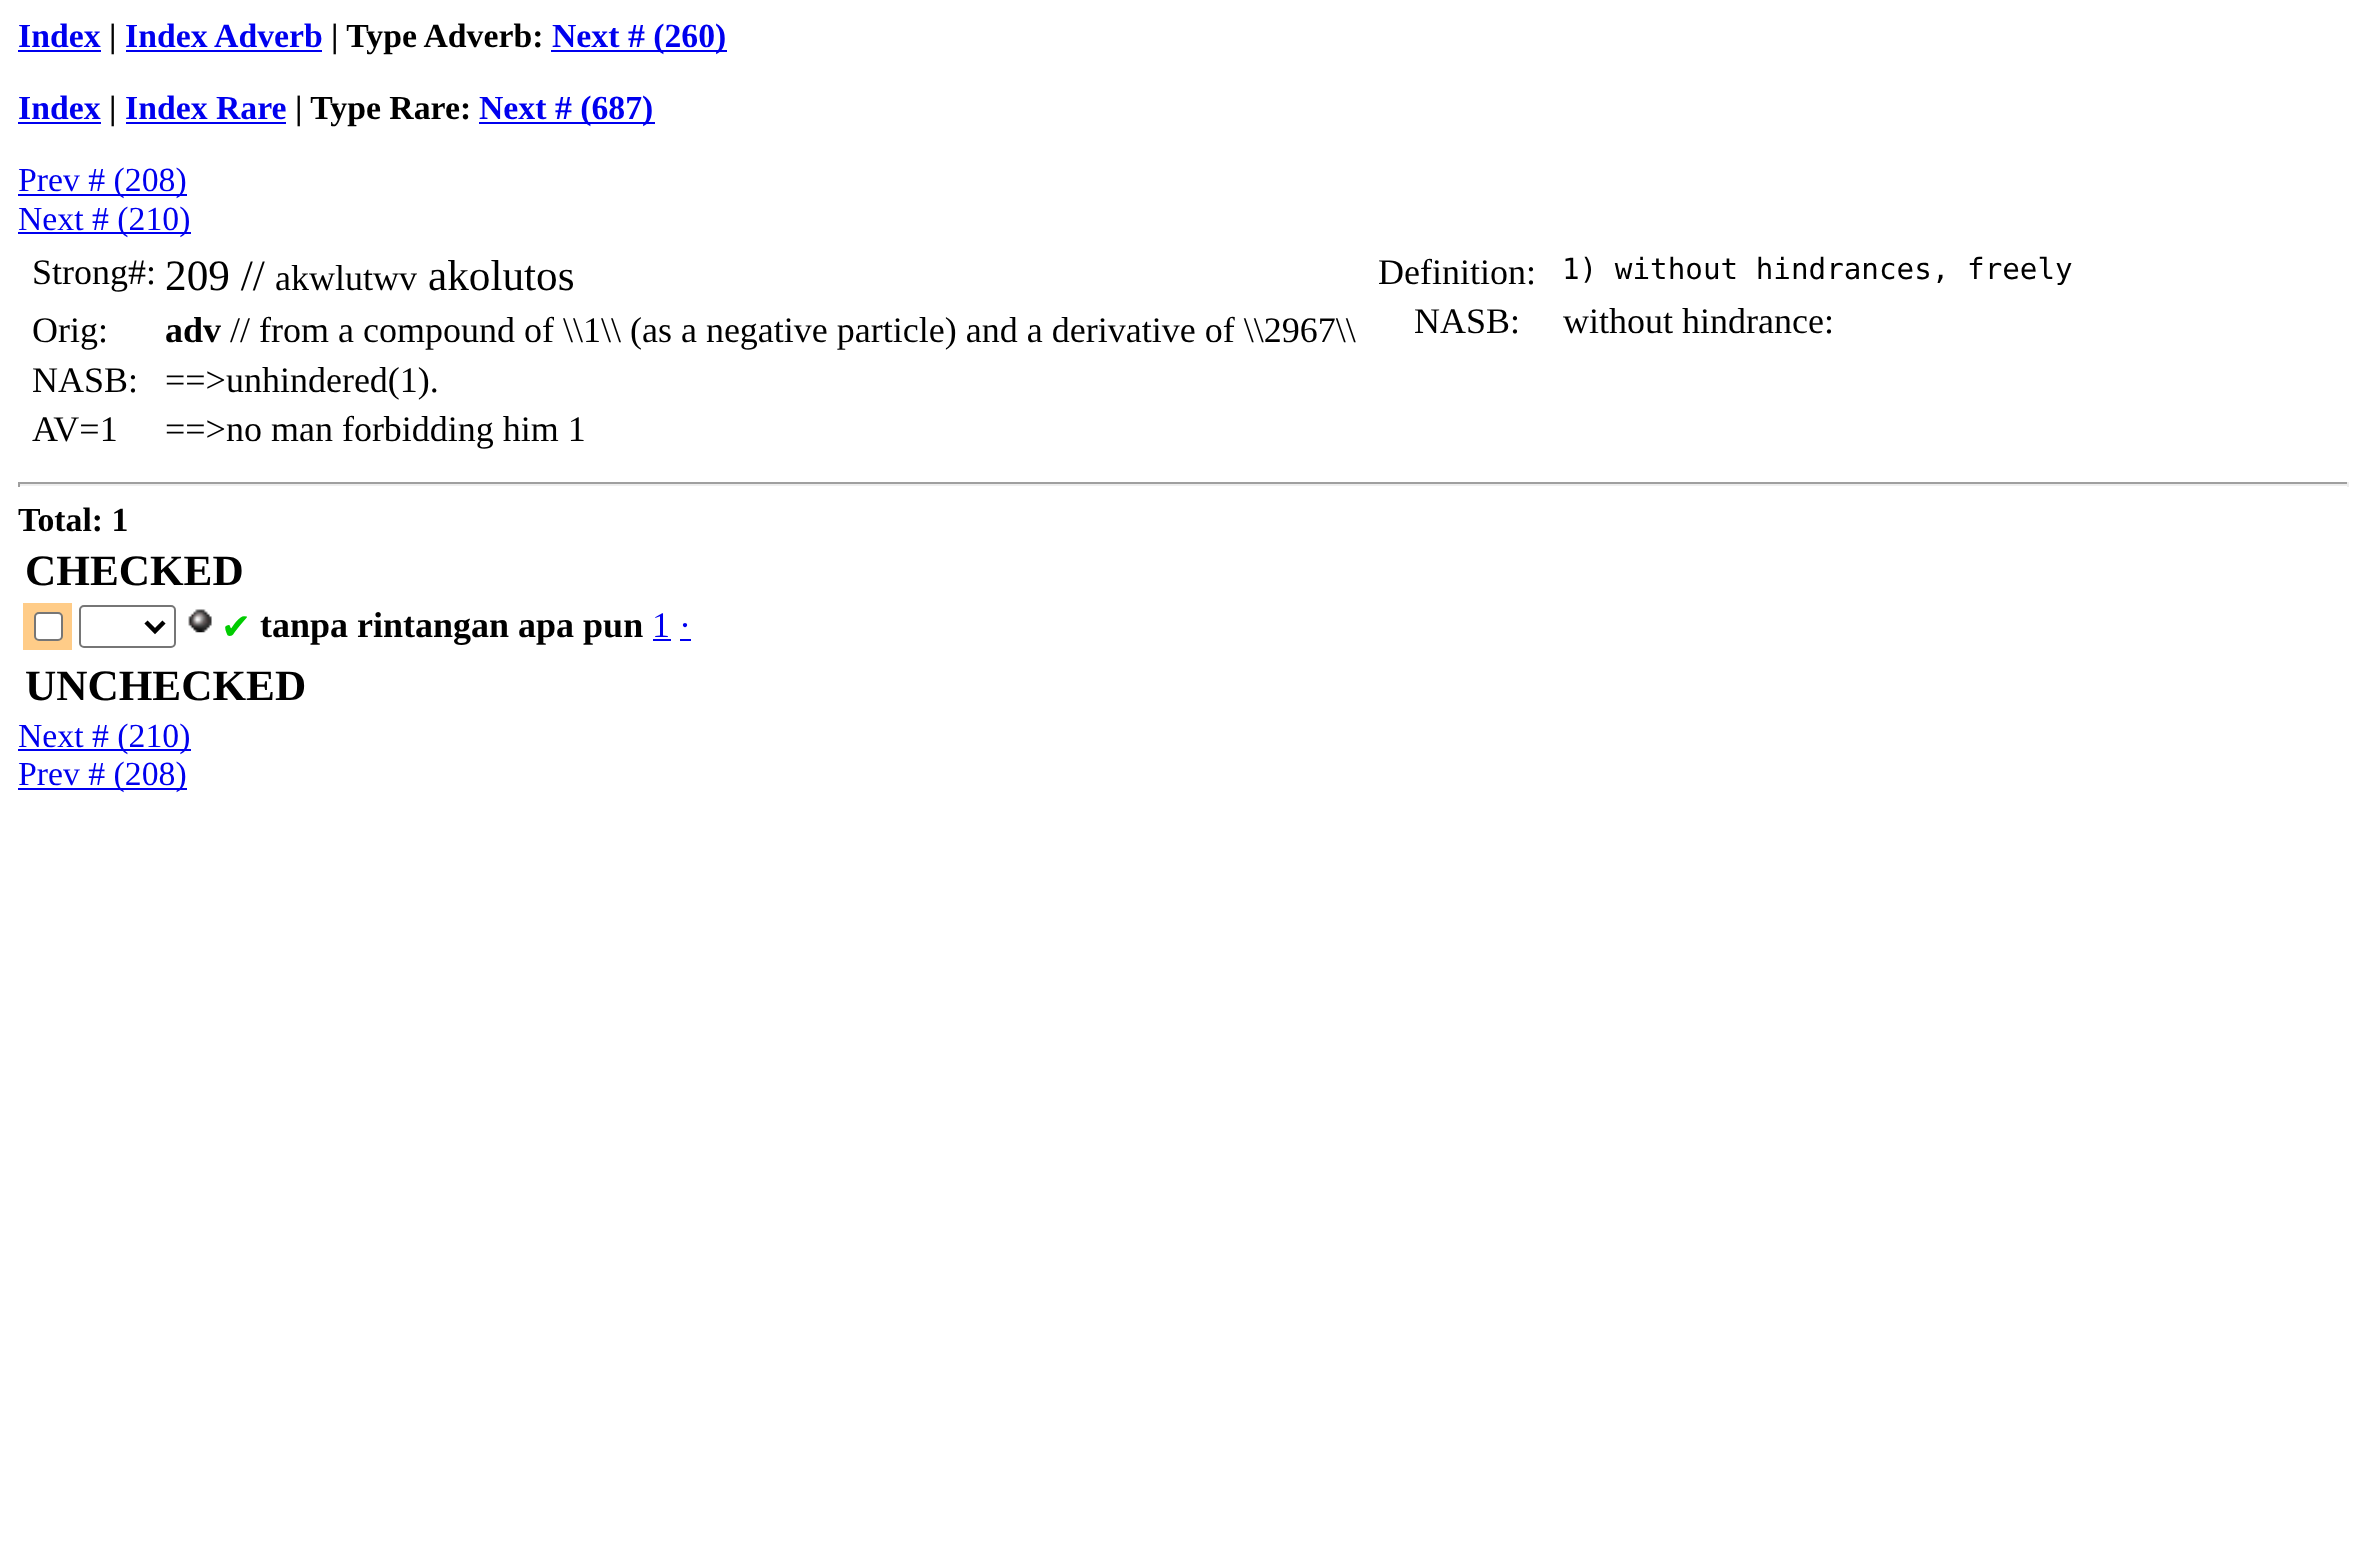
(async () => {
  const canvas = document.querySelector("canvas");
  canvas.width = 2365;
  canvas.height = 1544;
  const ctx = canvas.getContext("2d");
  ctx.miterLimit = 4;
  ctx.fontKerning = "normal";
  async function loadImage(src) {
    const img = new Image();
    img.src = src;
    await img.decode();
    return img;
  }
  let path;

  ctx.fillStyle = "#ffffff";
  ctx.fillRect(0, 0, 2365, 1544);
  for (const [x, y, w, h, color] of [
    [18, 50, 83, 2, "#0000ee"],
    [126, 50, 196, 2, "#0000ee"],
    [551, 50, 176, 2, "#0000ee"],
    [18, 122, 83, 2, "#0000ee"],
    [126, 122, 160, 2, "#0000ee"],
    [479, 122, 176, 2, "#0000ee"],
    [18, 194, 169, 2, "#0000ee"],
    [18, 232, 173, 2, "#0000ee"],
    [18, 482, 2331, 2, "#9f9f9f"],
    [2347, 482, 2, 5, "#eeeeee"],
    [18, 484, 2331, 2, "#eeeeee"],
    [18, 482, 2, 5, "#9f9f9f"],
    [23, 603, 49, 47, "#ffcc88"],
  ]) {
    ctx.fillStyle = color;
    ctx.fillRect(x, y, w, h);
  }
  ctx.fillStyle = "#ffffff";
  ctx.beginPath();
  ctx.roundRect(35, 613, 27, 27, 4);
  ctx.fill();
  ctx.strokeStyle = "#767676";
  ctx.lineWidth = 2;
  ctx.stroke();
  ctx.beginPath();
  ctx.roundRect(80, 606, 95, 41, 4);
  ctx.stroke();
  path = new Path2D("M146 622L155 631L164 622");
  ctx.strokeStyle = "#000000";
  ctx.lineWidth = 4.5;
  ctx.stroke(path);
  ctx.drawImage(await loadImage("img/1.png"), 188, 609, 24, 24);
  for (const [x, y, w, h, color] of [
    [653, 639, 18, 2, "#0000ee"],
    [680, 639, 11, 2, "#0000ee"],
    [18, 749, 173, 2, "#0000ee"],
    [18, 788, 169, 2, "#0000ee"],
  ]) {
    ctx.fillStyle = color;
    ctx.fillRect(x, y, w, h);
  }
  ctx.font = "bold 33.75px Liberation Serif";
  ctx.fillText("Index", 18, 47);
  ctx.fillStyle = "#000000";
  ctx.fillText("|", 109, 47);
  ctx.fillStyle = "#0000ee";
  ctx.fillText("Index Adverb", 125, 47);
  ctx.fillStyle = "#000000";
  ctx.fillText("| Type Adverb:", 331, 47);
  ctx.fillStyle = "#0000ee";
  ctx.fillText("Next # (260)", 552, 47);
  ctx.fillText("Index", 18, 119);
  ctx.fillStyle = "#000000";
  ctx.fillText("|", 109, 119);
  ctx.fillStyle = "#0000ee";
  ctx.fillText("Index Rare", 125, 119);
  ctx.fillStyle = "#000000";
  ctx.fillText("| Type Rare:", 295, 119);
  ctx.fillStyle = "#0000ee";
  ctx.fillText("Next # (687)", 479, 119);
  ctx.font = "33.75px Liberation Serif";
  ctx.fillText("Prev # (208)", 18, 191);
  ctx.fillText("Next # (210)", 18, 230);
  ctx.font = "36px Liberation Serif";
  ctx.fillStyle = "#000000";
  ctx.fillText("Strong#:", 32, 284);
  ctx.font = "43.25px Liberation Serif";
  ctx.fillText("209 //", 165, 290);
  ctx.font = "36px Liberation Serif";
  ctx.fillText("akwlutwv", 275, 290);
  ctx.font = "43.25px Liberation Serif";
  ctx.fillText("akolutos", 428, 290);
  ctx.font = "36px Liberation Serif";
  ctx.fillText("Orig:", 32, 342);
  ctx.font = "bold 36px Liberation Serif";
  ctx.fillText("adv", 165, 342);
  ctx.font = "36px Liberation Serif";
  for (const [text, x, y] of [
    ["// from a compound of \\\\1\\\\ (as a negative particle) and a derivative of \\\\2967\\\\", 230, 342],
    ["NASB:", 32, 392],
    ["==>unhindered(1).", 165, 392],
    ["AV=1", 32, 441],
    ["==>no man forbidding him 1", 165, 441],
    ["Definition:", 1378, 284],
  ]) {
    ctx.fillText(text, x, y);
  }
  ctx.font = "29.25px DejaVu Sans Mono";
  ctx.fillText("1) without hindrances, freely", 1562, 279);
  ctx.font = "36px Liberation Serif";
  ctx.fillText("NASB:", 1414, 333);
  ctx.fillText("without hindrance:", 1563, 333);
  ctx.font = "bold 33.75px Liberation Serif";
  ctx.fillText("Total: 1", 18, 531);
  ctx.font = "bold 43.25px Liberation Serif";
  ctx.fillText("CHECKED", 25, 585);
  ctx.font = "36px DejaVu Sans";
  ctx.fillStyle = "#00cc00";
  ctx.fillText("✔", 221, 639);
  ctx.font = "bold 36px Liberation Serif";
  ctx.fillStyle = "#000000";
  ctx.fillText("tanpa rintangan apa pun", 260, 637);
  ctx.font = "36px Liberation Serif";
  ctx.fillStyle = "#0000ee";
  ctx.fillText("1 ·", 652, 637);
  ctx.font = "bold 43.25px Liberation Serif";
  ctx.fillStyle = "#000000";
  ctx.fillText("UNCHECKED", 25, 700);
  ctx.font = "33.75px Liberation Serif";
  ctx.fillStyle = "#0000ee";
  ctx.fillText("Next # (210)", 18, 747);
  ctx.fillText("Prev # (208)", 18, 785);
})();
